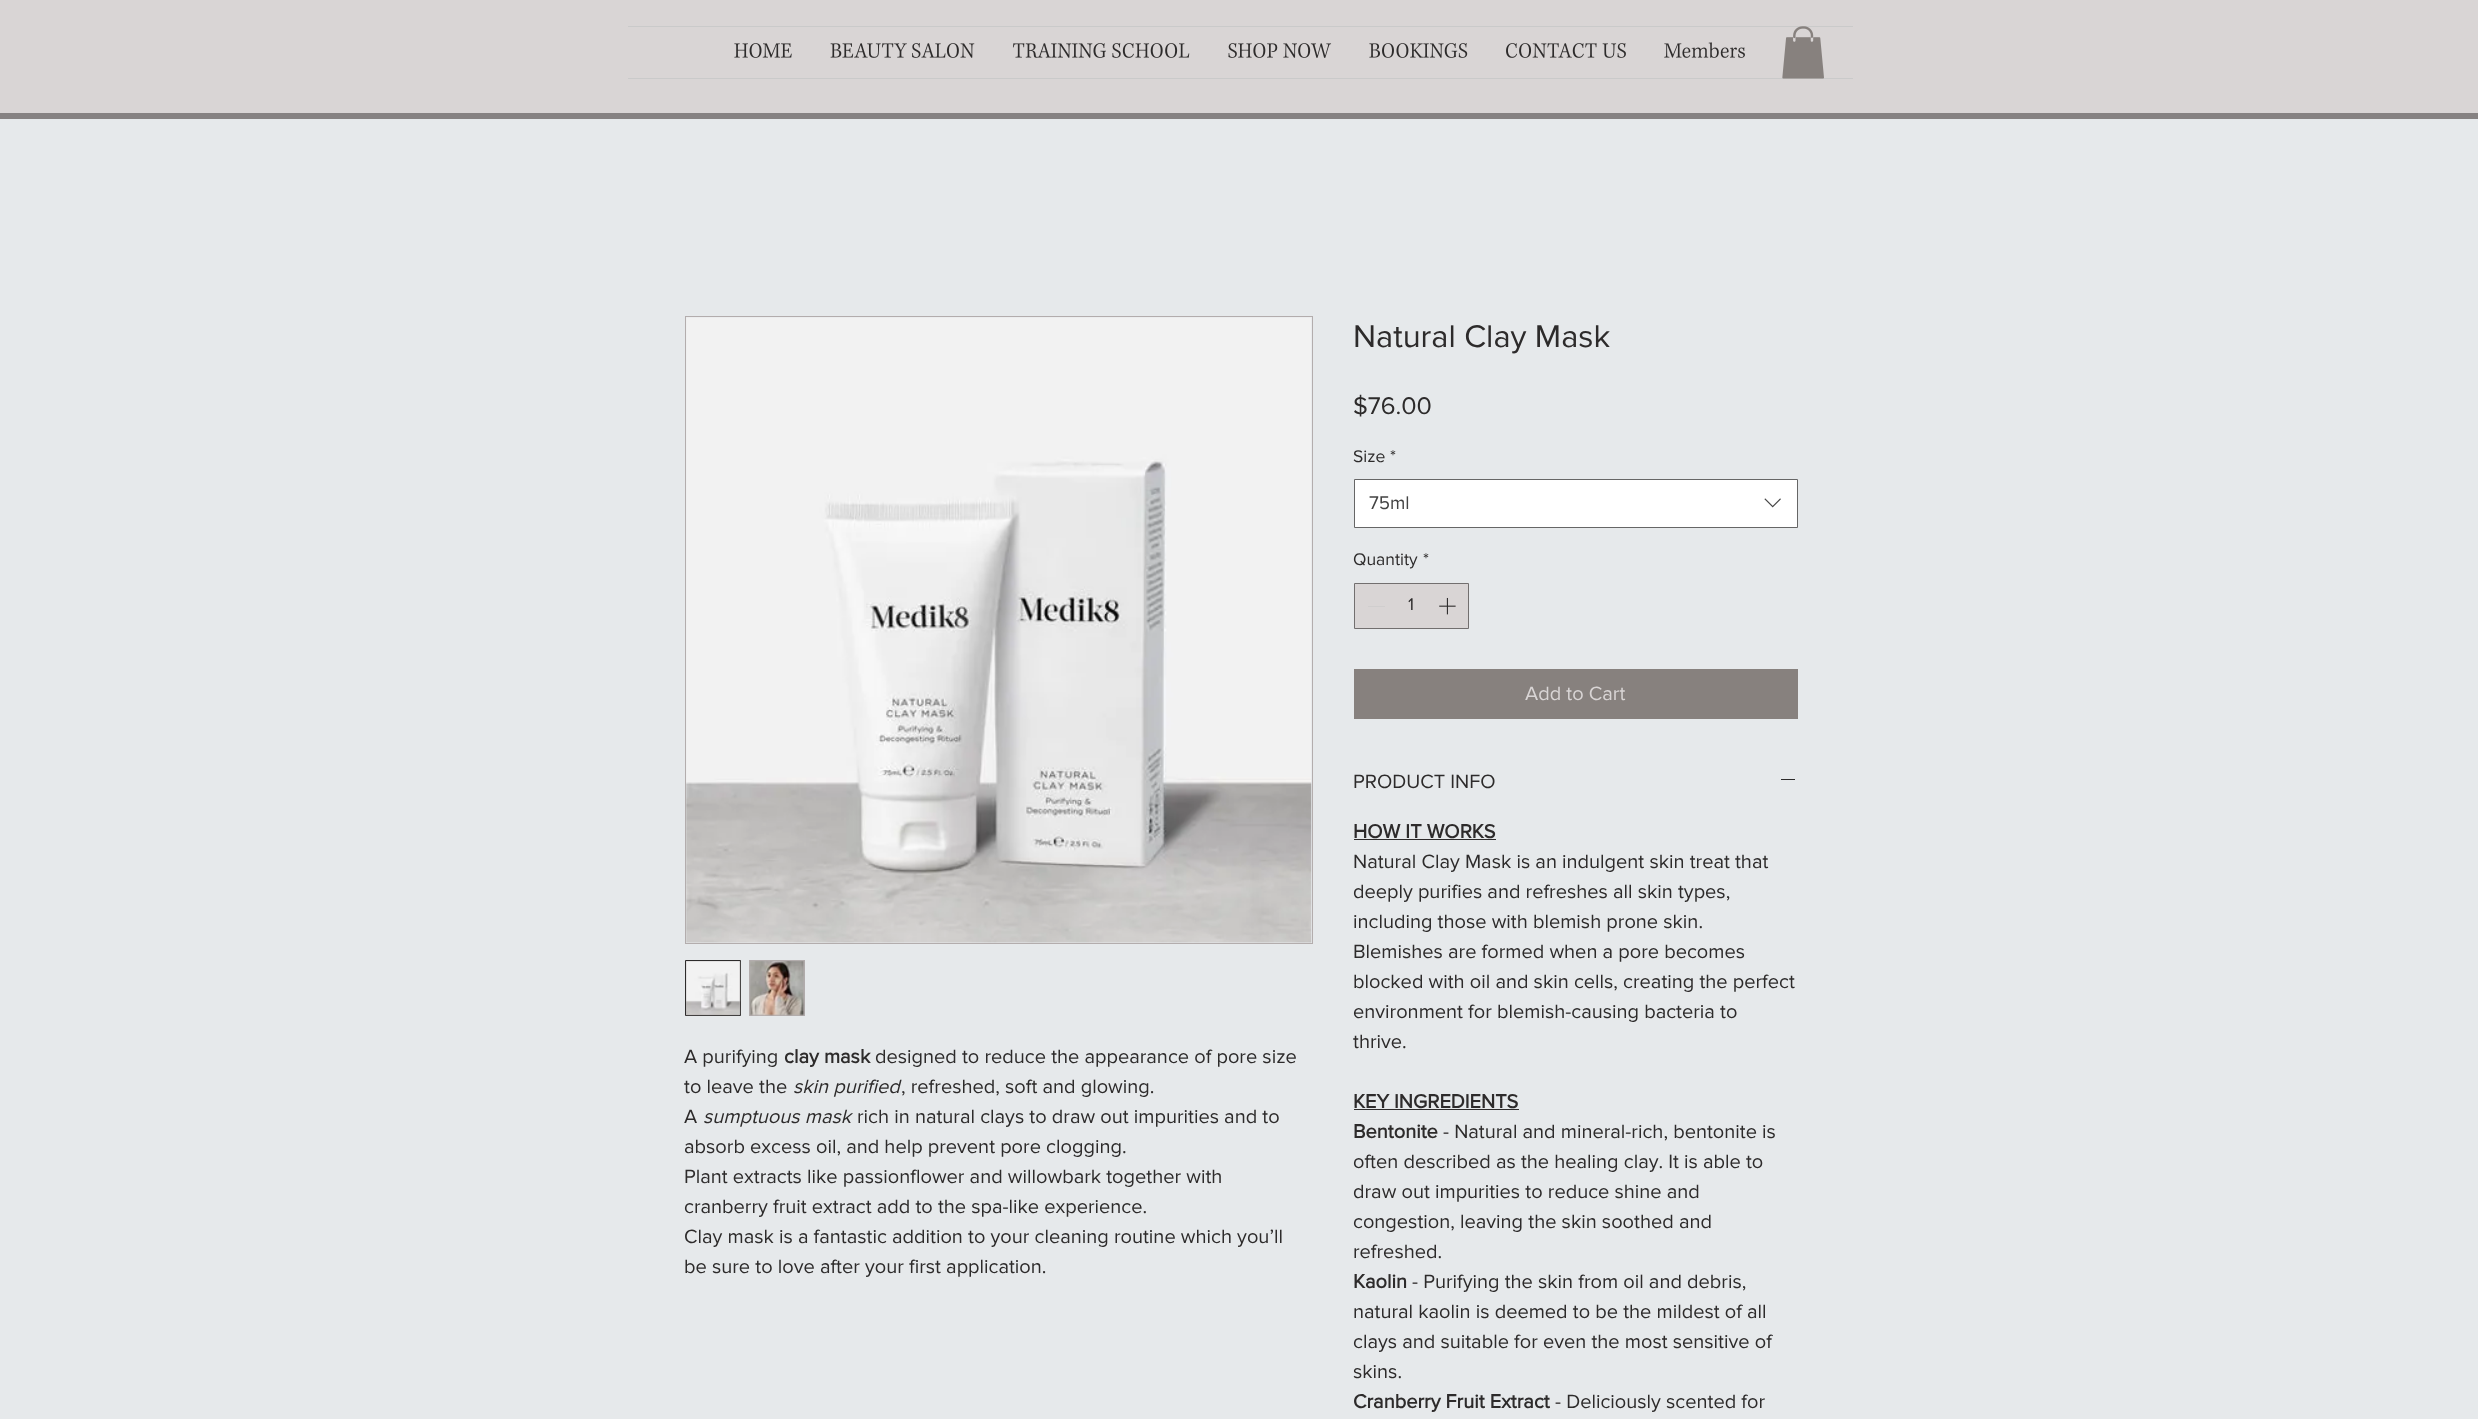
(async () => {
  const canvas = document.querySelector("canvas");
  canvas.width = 2478;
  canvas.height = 1419;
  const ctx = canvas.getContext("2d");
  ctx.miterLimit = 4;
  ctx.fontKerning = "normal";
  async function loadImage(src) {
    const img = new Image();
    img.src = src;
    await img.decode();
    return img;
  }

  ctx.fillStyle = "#e6e9eb";
  ctx.fillRect(0, 0, 2478, 1419);
  for (const [x, y, w, h, color] of [
    [0, 0, 2478, 113, "#d9d5d5"],
    [0, 113, 2478, 6, "#868282"],
    [628, 26, 1225, 1, "#cacaca"],
    [628, 78, 1225, 1, "#cacaca"],
  ]) {
    ctx.fillStyle = color;
    ctx.fillRect(x, y, w, h);
  }
  ctx.drawImage(await loadImage("img/1.png"), 734, 43, 58, 15);
  ctx.drawImage(await loadImage("img/2.png"), 830, 43, 145, 15);
  ctx.drawImage(await loadImage("img/3.png"), 1012, 43, 178, 15);
  ctx.drawImage(await loadImage("img/4.png"), 1228, 43, 104, 15);
  ctx.drawImage(await loadImage("img/5.png"), 1369, 43, 99, 15);
  ctx.drawImage(await loadImage("img/6.png"), 1506, 43, 120, 15);
  ctx.drawImage(await loadImage("img/7.png"), 1664, 42, 81, 16);
  ctx.drawImage(await loadImage("img/8.png"), 1782, 26, 42, 53);
  ctx.strokeStyle = "#b3adad";
  ctx.strokeRect(685.5, 316.5, 627, 627);
  ctx.drawImage(await loadImage("img/9.png"), 686, 317, 626, 626);
  ctx.fillStyle = "#b3adad";
  ctx.beginPath();
  ctx.rect(685.5, 960.5, 55, 55);
  ctx.fill();
  ctx.strokeStyle = "#2d2b2b";
  ctx.stroke();
  ctx.drawImage(await loadImage("img/10.png"), 686, 961, 55, 55);
  ctx.fillRect(749, 960, 56, 56);
  ctx.drawImage(await loadImage("img/11.png"), 750, 961, 55, 55);
  ctx.fillStyle = "#ffffff";
  ctx.beginPath();
  ctx.rect(1354.5, 479.5, 443, 48);
  ctx.fill();
  ctx.strokeStyle = "#666666";
  ctx.stroke();
  ctx.drawImage(await loadImage("img/12.png"), 1764, 498, 17, 10);
  ctx.fillStyle = "#d9d5d5";
  ctx.beginPath();
  ctx.rect(1354.5, 583.5, 114, 45);
  ctx.fill();
  ctx.strokeStyle = "#726f6f";
  ctx.stroke();
  ctx.fillStyle = "#d0cece";
  ctx.fillRect(1368, 606, 17, 1);
  ctx.drawImage(await loadImage("img/13.png"), 1439, 597, 17, 18);
  for (const [x, y, w, h, color] of [
    [1354, 669, 444, 50, "#87817e"],
    [1781, 779, 14, 1, "#2d2b2b"],
    [1354, 839, 142, 1, "#2d2b2b"],
    [1354, 1109, 165, 1, "#2d2b2b"],
  ]) {
    ctx.fillStyle = color;
    ctx.fillRect(x, y, w, h);
  }
  ctx.font = "20px 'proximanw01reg'";
  ctx.fillText("A purifying", 684, 1063);
  ctx.font = "bold 20px 'proximanw01reg'";
  ctx.fillText("clay mask", 784, 1063);
  ctx.font = "20px 'proximanw01reg'";
  ctx.fillText("designed to reduce the appearance of pore size", 875, 1063);
  ctx.fillText("to leave the", 684, 1093);
  ctx.font = "italic 20px 'proximanw01reg'";
  ctx.fillText("skin purified", 793, 1093);
  ctx.font = "20px 'proximanw01reg'";
  ctx.fillText(", refreshed, soft and glowing.", 901, 1093);
  ctx.fillText("A", 684, 1123);
  ctx.font = "italic 20px 'proximanw01reg'";
  ctx.fillText("sumptuous mask", 703, 1123);
  ctx.font = "20px 'proximanw01reg'";
  for (const [text, x, y] of [
    ["rich in natural clays to draw out impurities and to", 857, 1123],
    ["absorb excess oil, and help prevent pore clogging.", 684, 1153],
    ["Plant extracts like passionflower and willowbark together with", 684, 1183],
    ["cranberry fruit extract add to the spa-like experience.", 684, 1213],
    ["Clay mask is a fantastic addition to your cleaning routine which you’ll", 684, 1243],
    ["be sure to love after your first application.", 684, 1273],
  ]) {
    ctx.fillText(text, x, y);
  }
  ctx.font = "32.5px 'proximanw01reg'";
  ctx.fillText("Natural Clay Mask", 1353, 347);
  ctx.font = "25px 'proximanw01reg'";
  ctx.fillText("$76.00", 1353, 414);
  ctx.font = "17.5px 'proximanw01reg'";
  ctx.fillText("Size", 1353, 462);
  ctx.fillText("*", 1390, 462);
  ctx.font = "19px 'proximanw01reg'";
  ctx.fillStyle = "#444444";
  ctx.fillText("75ml", 1369, 509);
  ctx.font = "17.5px 'proximanw01reg'";
  ctx.fillStyle = "#2d2b2b";
  for (const [text, x, y] of [
    ["Quantity", 1353, 565],
    ["*", 1423, 565],
    ["1", 1408, 610],
  ]) {
    ctx.fillText(text, x, y);
  }
  ctx.font = "20px 'proximanw01reg'";
  ctx.fillStyle = "#d9d5d5";
  ctx.fillText("Add to Cart", 1525, 700);
  ctx.fillStyle = "#2d2b2b";
  ctx.fillText("PRODUCT INFO", 1353, 788);
  ctx.font = "bold 20px 'proximanw01reg'";
  ctx.fillText("HOW IT WORKS", 1353, 838);
  ctx.font = "20px 'proximanw01reg'";
  for (const [text, x, y] of [
    ["Natural Clay Mask is an indulgent skin treat that", 1353, 868],
    ["deeply purifies and refreshes all skin types,", 1353, 898],
    ["including those with blemish prone skin.", 1353, 928],
    ["Blemishes are formed when a pore becomes", 1353, 958],
    ["blocked with oil and skin cells, creating the perfect", 1353, 988],
    ["environment for blemish-causing bacteria to", 1353, 1018],
    ["thrive.", 1353, 1048],
  ]) {
    ctx.fillText(text, x, y);
  }
  ctx.font = "bold 20px 'proximanw01reg'";
  ctx.fillText("KEY INGREDIENTS", 1353, 1108);
  ctx.fillText("Bentonite", 1353, 1138);
  ctx.font = "20px 'proximanw01reg'";
  for (const [text, x, y] of [
    ["- Natural and mineral-rich, bentonite is", 1443, 1138],
    ["often described as the healing clay. It is able to", 1353, 1168],
    ["draw out impurities to reduce shine and", 1353, 1198],
    ["congestion, leaving the skin soothed and", 1353, 1228],
    ["refreshed.", 1353, 1258],
  ]) {
    ctx.fillText(text, x, y);
  }
  ctx.font = "bold 20px 'proximanw01reg'";
  ctx.fillText("Kaolin", 1353, 1288);
  ctx.font = "20px 'proximanw01reg'";
  for (const [text, x, y] of [
    ["- Purifying the skin from oil and debris,", 1412, 1288],
    ["natural kaolin is deemed to be the mildest of all", 1353, 1318],
    ["clays and suitable for even the most sensitive of", 1353, 1348],
    ["skins.", 1353, 1378],
  ]) {
    ctx.fillText(text, x, y);
  }
  ctx.font = "bold 20px 'proximanw01reg'";
  ctx.fillText("Cranberry Fruit Extract", 1353, 1408);
  ctx.font = "20px 'proximanw01reg'";
  ctx.fillText("- Deliciously scented for", 1555, 1408);
})();
